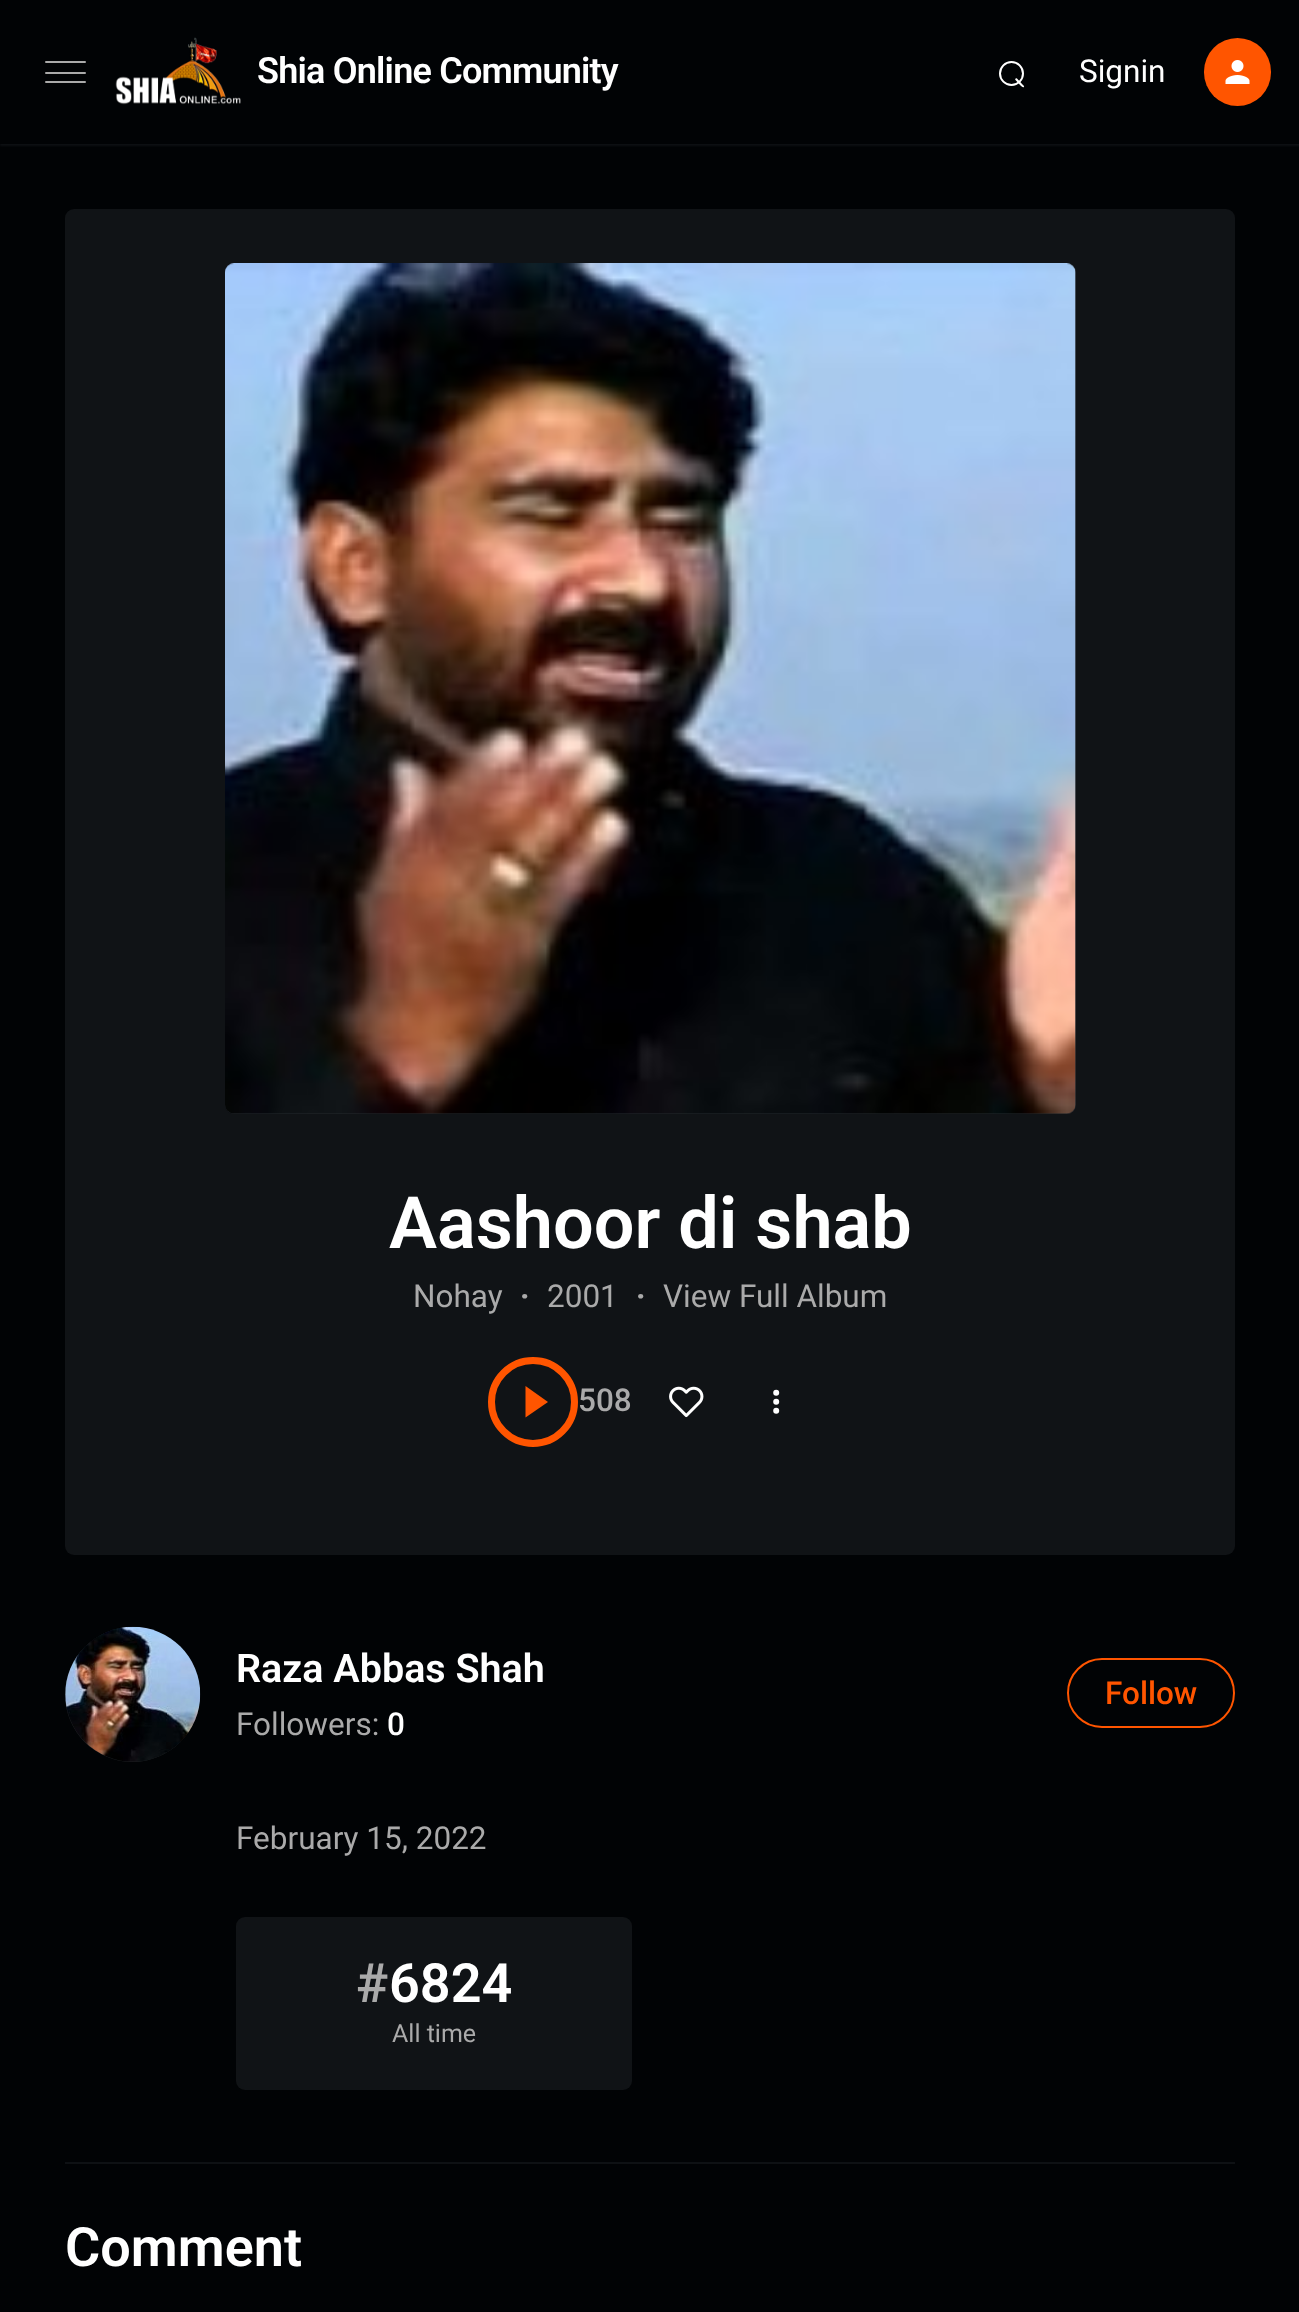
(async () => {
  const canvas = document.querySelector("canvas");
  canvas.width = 1299;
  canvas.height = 2312;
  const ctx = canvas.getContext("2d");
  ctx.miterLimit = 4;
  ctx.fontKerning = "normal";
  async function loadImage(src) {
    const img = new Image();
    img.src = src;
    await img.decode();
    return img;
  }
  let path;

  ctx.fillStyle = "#010305";
  ctx.fillRect(0, 0, 1299, 2312);
  ctx.save();
  ctx.beginPath();
  ctx.rect(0, 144, 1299, 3);
  ctx.clip();
  ctx.fillStyle = "rgba(130, 140, 150, 0.1)";
  ctx.filter = "blur(1px)";
  ctx.beginPath();
  ctx.rect(0, 2, 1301, 144);
  ctx.fill();
  ctx.filter = "none";
  ctx.restore();
  ctx.fillStyle = "#aaaaaa";
  ctx.beginPath();
  ctx.roundRect(45, 72, 41, 2, 1);
  ctx.fill();
  ctx.beginPath();
  ctx.roundRect(45, 61, 41, 2, 1);
  ctx.fill();
  ctx.beginPath();
  ctx.roundRect(45, 81, 41, 2, 1);
  ctx.fill();
  ctx.drawImage(await loadImage("img/1.png"), 115, 37, 126, 68);
  ctx.beginPath();
  ctx.arc(1011.5, 73.5, 11.5, 0, Math.PI * 2);
  ctx.strokeStyle = "#ffffff";
  ctx.lineWidth = 2;
  ctx.stroke();
  ctx.fillStyle = "#ffffff";
  path = new Path2D("M1017 78.5L1022.5 84.5C1025.5 87 1024 88.5 1021 86L1015.5 80C1014.5 79 1016 78 1017 78.5Z");
  ctx.fill(path);
  ctx.fillStyle = "#ff5500";
  ctx.beginPath();
  ctx.roundRect(1204, 38, 67, 68, 33.5);
  ctx.fill();
  ctx.drawImage(await loadImage("img/2.png"), 1225, 60, 25, 24);
  ctx.fillStyle = "#101316";
  ctx.beginPath();
  ctx.roundRect(65, 209, 1170, 1346, 9);
  ctx.fill();
  ctx.fillStyle = "#23272c";
  ctx.beginPath();
  ctx.roundRect(225, 263, 851, 851, 9);
  ctx.fill();
  ctx.drawImage(await loadImage("img/3.png"), 225, 263, 851, 851);
  ctx.fillStyle = "#ff5500";
  path = new Path2D("M525.5 1417.5V1386L548 1402Z");
  ctx.fill(path);
  ctx.beginPath();
  ctx.arc(533, 1402, 41.5, 0, Math.PI * 2);
  ctx.strokeStyle = "#ff5500";
  ctx.lineWidth = 7;
  ctx.stroke();
  ctx.drawImage(await loadImage("img/4.png"), 669, 1386, 35, 32);
  ctx.fillStyle = "#ffffff";
  ctx.beginPath();
  ctx.arc(776.2, 1401.8, 3, 0, Math.PI * 2);
  ctx.fill();
  ctx.beginPath();
  ctx.arc(776.2, 1392.8, 3, 0, Math.PI * 2);
  ctx.fill();
  ctx.beginPath();
  ctx.arc(776.2, 1410.8, 3, 0, Math.PI * 2);
  ctx.fill();
  ctx.fillStyle = "#202326";
  ctx.beginPath();
  ctx.arc(132.5, 1694.5, 67.5, 0, Math.PI * 2);
  ctx.fill();
  ctx.drawImage(await loadImage("img/5.png"), 65, 1626, 136, 136);
  ctx.beginPath();
  ctx.roundRect(1068, 1659, 166, 68, 34);
  ctx.lineWidth = 2;
  ctx.stroke();
  ctx.fillStyle = "#101316";
  ctx.beginPath();
  ctx.roundRect(236, 1917, 396, 173, 9);
  ctx.fill();
  ctx.fillStyle = "#0e1114";
  ctx.fillRect(65, 2162, 1170, 2);
  ctx.letterSpacing = "-0.8px";
  ctx.font = "600 36px Roboto";
  ctx.fillStyle = "#ffffff";
  ctx.fillText("Shia Online Community", 257, 83);
  ctx.letterSpacing = "0px";
  ctx.font = "31.5px Roboto";
  ctx.fillText("Signin", 1079, 82);
  ctx.font = "600 72px Roboto";
  ctx.fillText("Aashoor di shab", 389, 1248);
  ctx.font = "31.5px Roboto";
  ctx.fillStyle = "#aaaaaa";
  ctx.fillText("Nohay", 413, 1307);
  ctx.font = "bold 31.5px Roboto";
  ctx.fillText("·", 520, 1307);
  ctx.font = "31.5px Roboto";
  ctx.fillText("2001", 547, 1307);
  ctx.font = "bold 31.5px Roboto";
  ctx.fillText("·", 636, 1307);
  ctx.font = "31.5px Roboto";
  ctx.fillText("View Full Album", 663, 1307);
  ctx.font = "500 31.5px Roboto";
  ctx.fillText("508", 578, 1411);
  ctx.font = "600 39.5px Roboto";
  ctx.fillStyle = "#ffffff";
  ctx.fillText("Raza Abbas Shah", 236, 1682);
  ctx.font = "31.5px Roboto";
  ctx.fillStyle = "#aaaaaa";
  ctx.fillText("Followers:", 236, 1735);
  ctx.font = "500 31.5px Roboto";
  ctx.fillStyle = "#ffffff";
  ctx.fillText("0", 387, 1735);
  ctx.fillStyle = "#ff5500";
  ctx.fillText("Follow", 1105, 1704);
  ctx.font = "31.5px Roboto";
  ctx.fillStyle = "#aaaaaa";
  ctx.fillText("February 15, 2022", 236, 1849);
  ctx.font = "600 54px Roboto";
  ctx.fillText("#", 356, 2002);
  ctx.fillStyle = "#ffffff";
  ctx.fillText("6824", 389, 2002);
  ctx.font = "25px Roboto";
  ctx.fillStyle = "#aaaaaa";
  ctx.fillText("All time", 392, 2042);
  ctx.font = "600 54px Roboto";
  ctx.fillStyle = "#ffffff";
  ctx.fillText("Comment", 65, 2266);
})();
